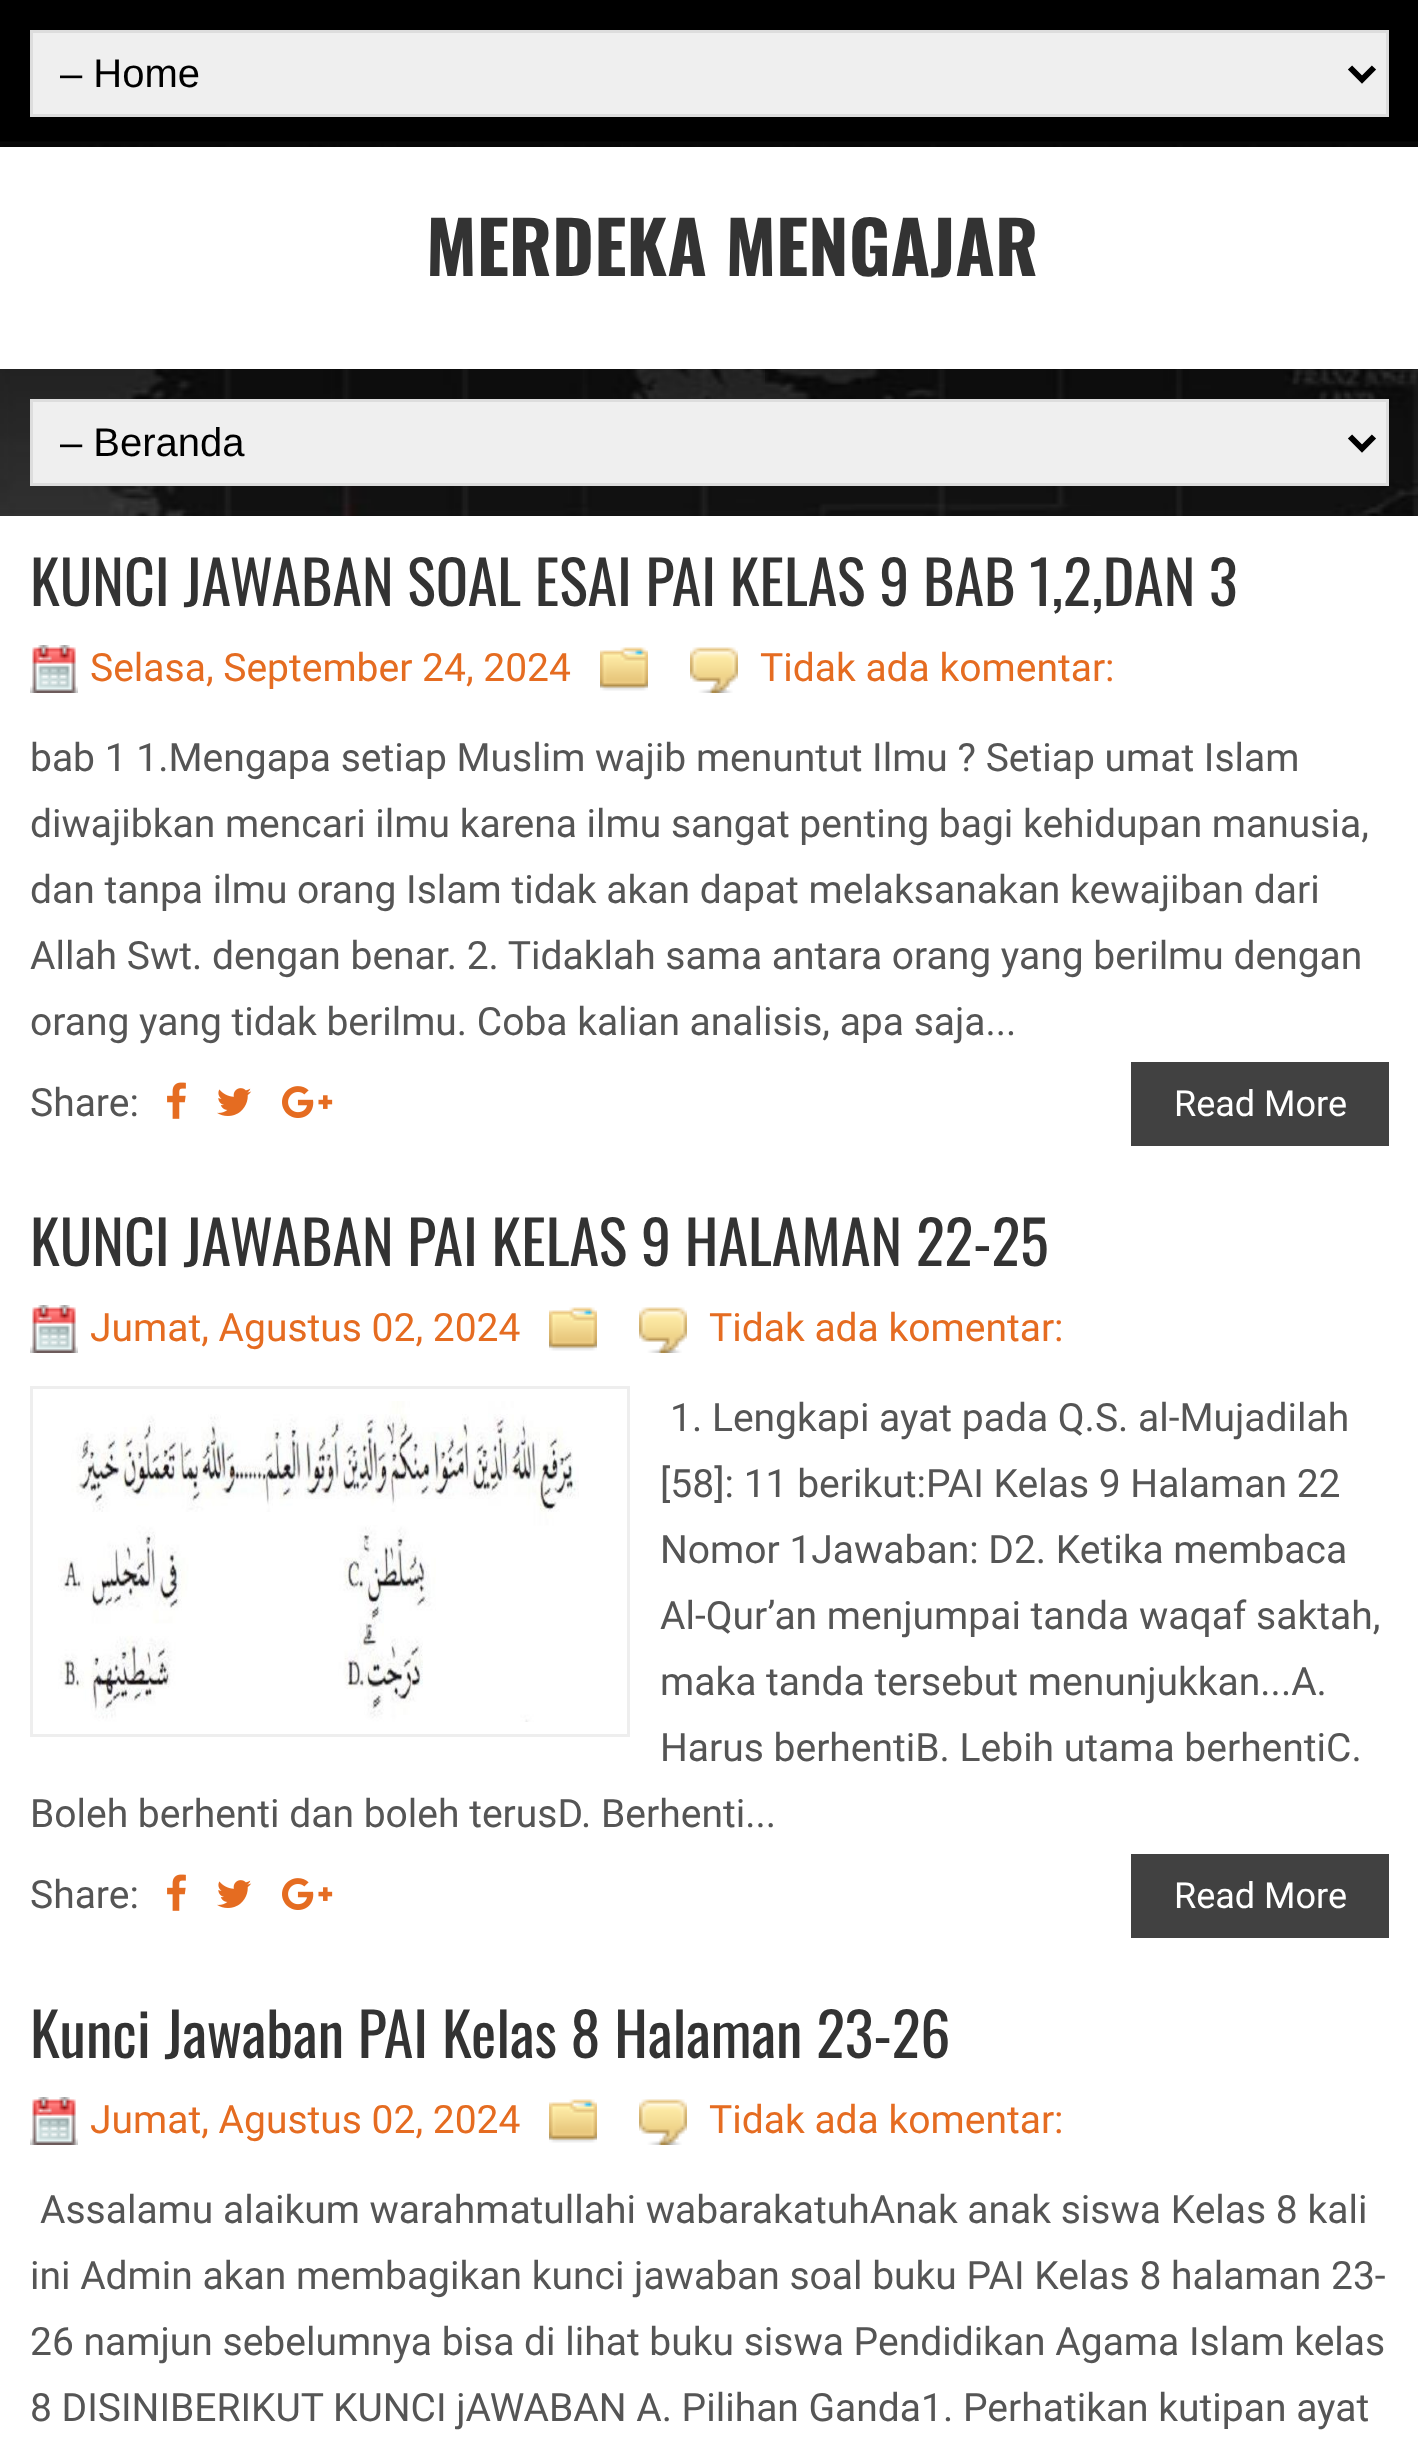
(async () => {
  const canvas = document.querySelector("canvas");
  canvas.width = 1418;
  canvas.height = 2438;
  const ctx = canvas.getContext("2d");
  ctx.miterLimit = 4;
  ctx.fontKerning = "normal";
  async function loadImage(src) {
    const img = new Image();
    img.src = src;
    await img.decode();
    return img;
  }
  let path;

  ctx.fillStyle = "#000000";
  ctx.fillRect(0, 0, 1418, 2438);
  ctx.drawImage(await loadImage("img/1.png"), 0, 141, 1418, 375);
  ctx.fillStyle = "#efefef";
  ctx.beginPath();
  ctx.rect(31.5, 31.5, 1356, 84);
  ctx.fill();
  ctx.strokeStyle = "#dddddd";
  ctx.lineWidth = 3;
  ctx.stroke();
  path = new Path2D("M1350 67.5L1362 79.5L1374 67.5");
  ctx.strokeStyle = "#000000";
  ctx.lineWidth = 6;
  ctx.stroke(path);
  ctx.fillStyle = "#ffffff";
  ctx.fillRect(0, 147, 1418, 222);
  ctx.fillStyle = "#efefef";
  ctx.beginPath();
  ctx.rect(31.5, 400.5, 1356, 84);
  ctx.fill();
  ctx.strokeStyle = "#dddddd";
  ctx.lineWidth = 3;
  ctx.stroke();
  path = new Path2D("M1350 436.5L1362 448.5L1374 436.5");
  ctx.strokeStyle = "#000000";
  ctx.lineWidth = 6;
  ctx.stroke(path);
  ctx.fillStyle = "#ffffff";
  ctx.fillRect(0, 516, 1418, 1922);
  ctx.drawImage(await loadImage("img/2.png"), 30, 645, 48, 48);
  ctx.drawImage(await loadImage("img/3.png"), 600, 647, 48, 44);
  ctx.drawImage(await loadImage("img/4.png"), 690, 647, 48, 46);
  ctx.drawImage(await loadImage("img/5.png"), 167, 1082, 19, 37);
  ctx.drawImage(await loadImage("img/6.png"), 217, 1088, 35, 28);
  ctx.drawImage(await loadImage("img/7.png"), 282, 1086, 51, 32);
  ctx.fillStyle = "#414141";
  ctx.fillRect(1131, 1062, 258, 84);
  ctx.drawImage(await loadImage("img/2.png"), 30, 1305, 48, 48);
  ctx.drawImage(await loadImage("img/8.png"), 549, 1307, 48, 44);
  ctx.drawImage(await loadImage("img/4.png"), 639, 1307, 48, 46);
  ctx.strokeStyle = "#eeeeee";
  ctx.lineWidth = 3;
  ctx.strokeRect(31.5, 1387.5, 597, 348);
  ctx.drawImage(await loadImage("img/9.png"), 58, 1401, 521, 321);
  ctx.drawImage(await loadImage("img/5.png"), 167, 1874, 19, 37);
  ctx.drawImage(await loadImage("img/6.png"), 217, 1880, 35, 28);
  ctx.drawImage(await loadImage("img/7.png"), 282, 1878, 51, 32);
  ctx.fillRect(1131, 1854, 258, 84);
  ctx.drawImage(await loadImage("img/2.png"), 30, 2097, 48, 48);
  ctx.drawImage(await loadImage("img/8.png"), 549, 2099, 48, 44);
  ctx.drawImage(await loadImage("img/4.png"), 639, 2099, 48, 46);
  ctx.font = "40px Liberation Sans";
  ctx.fillStyle = "#000000";
  ctx.fillText("– Home", 60, 87);
  ctx.font = "bold 72px Oswald";
  ctx.fillStyle = "#333333";
  ctx.fillText("MERDEKA MENGAJAR", 426, 276);
  ctx.font = "40px Liberation Sans";
  ctx.fillStyle = "#000000";
  ctx.fillText("– Beranda", 60, 456);
  ctx.font = "60px Oswald";
  ctx.fillStyle = "#333333";
  ctx.fillText("KUNCI JAWABAN SOAL ESAI PAI KELAS 9 BAB 1,2,DAN 3", 30, 606);
  ctx.font = "39px Roboto";
  ctx.fillStyle = "#e56c21";
  ctx.fillText("Selasa, September 24, 2024", 90, 681);
  ctx.fillText("Tidak ada komentar:", 760, 681);
  ctx.fillStyle = "#555555";
  for (const [text, x, y] of [
    ["bab 1 1.Mengapa setiap Muslim wajib menuntut Ilmu ? Setiap umat Islam", 30, 771],
    ["diwajibkan mencari ilmu karena ilmu sangat penting bagi kehidupan manusia,", 30, 837],
    ["dan tanpa ilmu orang Islam tidak akan dapat melaksanakan kewajiban dari", 30, 903],
    ["Allah Swt. dengan benar. 2. Tidaklah sama antara orang yang berilmu dengan", 30, 969],
    ["orang yang tidak berilmu. Coba kalian analisis, apa saja...", 30, 1035],
    ["Share:", 30, 1116],
  ]) {
    ctx.fillText(text, x, y);
  }
  ctx.font = "36px Roboto";
  ctx.fillStyle = "#ffffff";
  ctx.fillText("Read More", 1174, 1116);
  ctx.font = "60px Oswald";
  ctx.fillStyle = "#333333";
  ctx.fillText("KUNCI JAWABAN PAI KELAS 9 HALAMAN 22-25", 30, 1266);
  ctx.font = "39px Roboto";
  ctx.fillStyle = "#e56c21";
  ctx.fillText("Jumat, Agustus 02, 2024", 90, 1341);
  ctx.fillText("Tidak ada komentar:", 709, 1341);
  ctx.fillStyle = "#555555";
  for (const [text, x, y] of [
    ["1. Lengkapi ayat pada Q.S. al-Mujadilah", 670, 1431],
    ["[58]: 11 berikut:PAI Kelas 9 Halaman 22", 660, 1497],
    ["Nomor 1Jawaban: D2. Ketika membaca", 660, 1563],
    ["Al-Qur’an menjumpai tanda waqaf saktah,", 660, 1629],
    ["maka tanda tersebut menunjukkan...A.", 660, 1695],
    ["Harus berhentiB. Lebih utama berhentiC.", 660, 1761],
    ["Boleh berhenti dan boleh terusD. Berhenti...", 30, 1827],
    ["Share:", 30, 1908],
  ]) {
    ctx.fillText(text, x, y);
  }
  ctx.font = "36px Roboto";
  ctx.fillStyle = "#ffffff";
  ctx.fillText("Read More", 1174, 1908);
  ctx.font = "60px Oswald";
  ctx.fillStyle = "#333333";
  ctx.fillText("Kunci Jawaban PAI Kelas 8 Halaman 23-26", 30, 2058);
  ctx.font = "39px Roboto";
  ctx.fillStyle = "#e56c21";
  ctx.fillText("Jumat, Agustus 02, 2024", 90, 2133);
  ctx.fillText("Tidak ada komentar:", 709, 2133);
  ctx.fillStyle = "#555555";
  for (const [text, x, y] of [
    ["Assalamu alaikum warahmatullahi wabarakatuhAnak anak siswa Kelas 8 kali", 40, 2223],
    ["ini Admin akan membagikan kunci jawaban soal buku PAI Kelas 8 halaman 23-", 30, 2289],
    ["26 namjun sebelumnya bisa di lihat buku siswa Pendidikan Agama Islam kelas", 30, 2355],
    ["8 DISINIBERIKUT KUNCI jAWABAN A. Pilihan Ganda1. Perhatikan kutipan ayat", 30, 2421],
  ]) {
    ctx.fillText(text, x, y);
  }
})();
